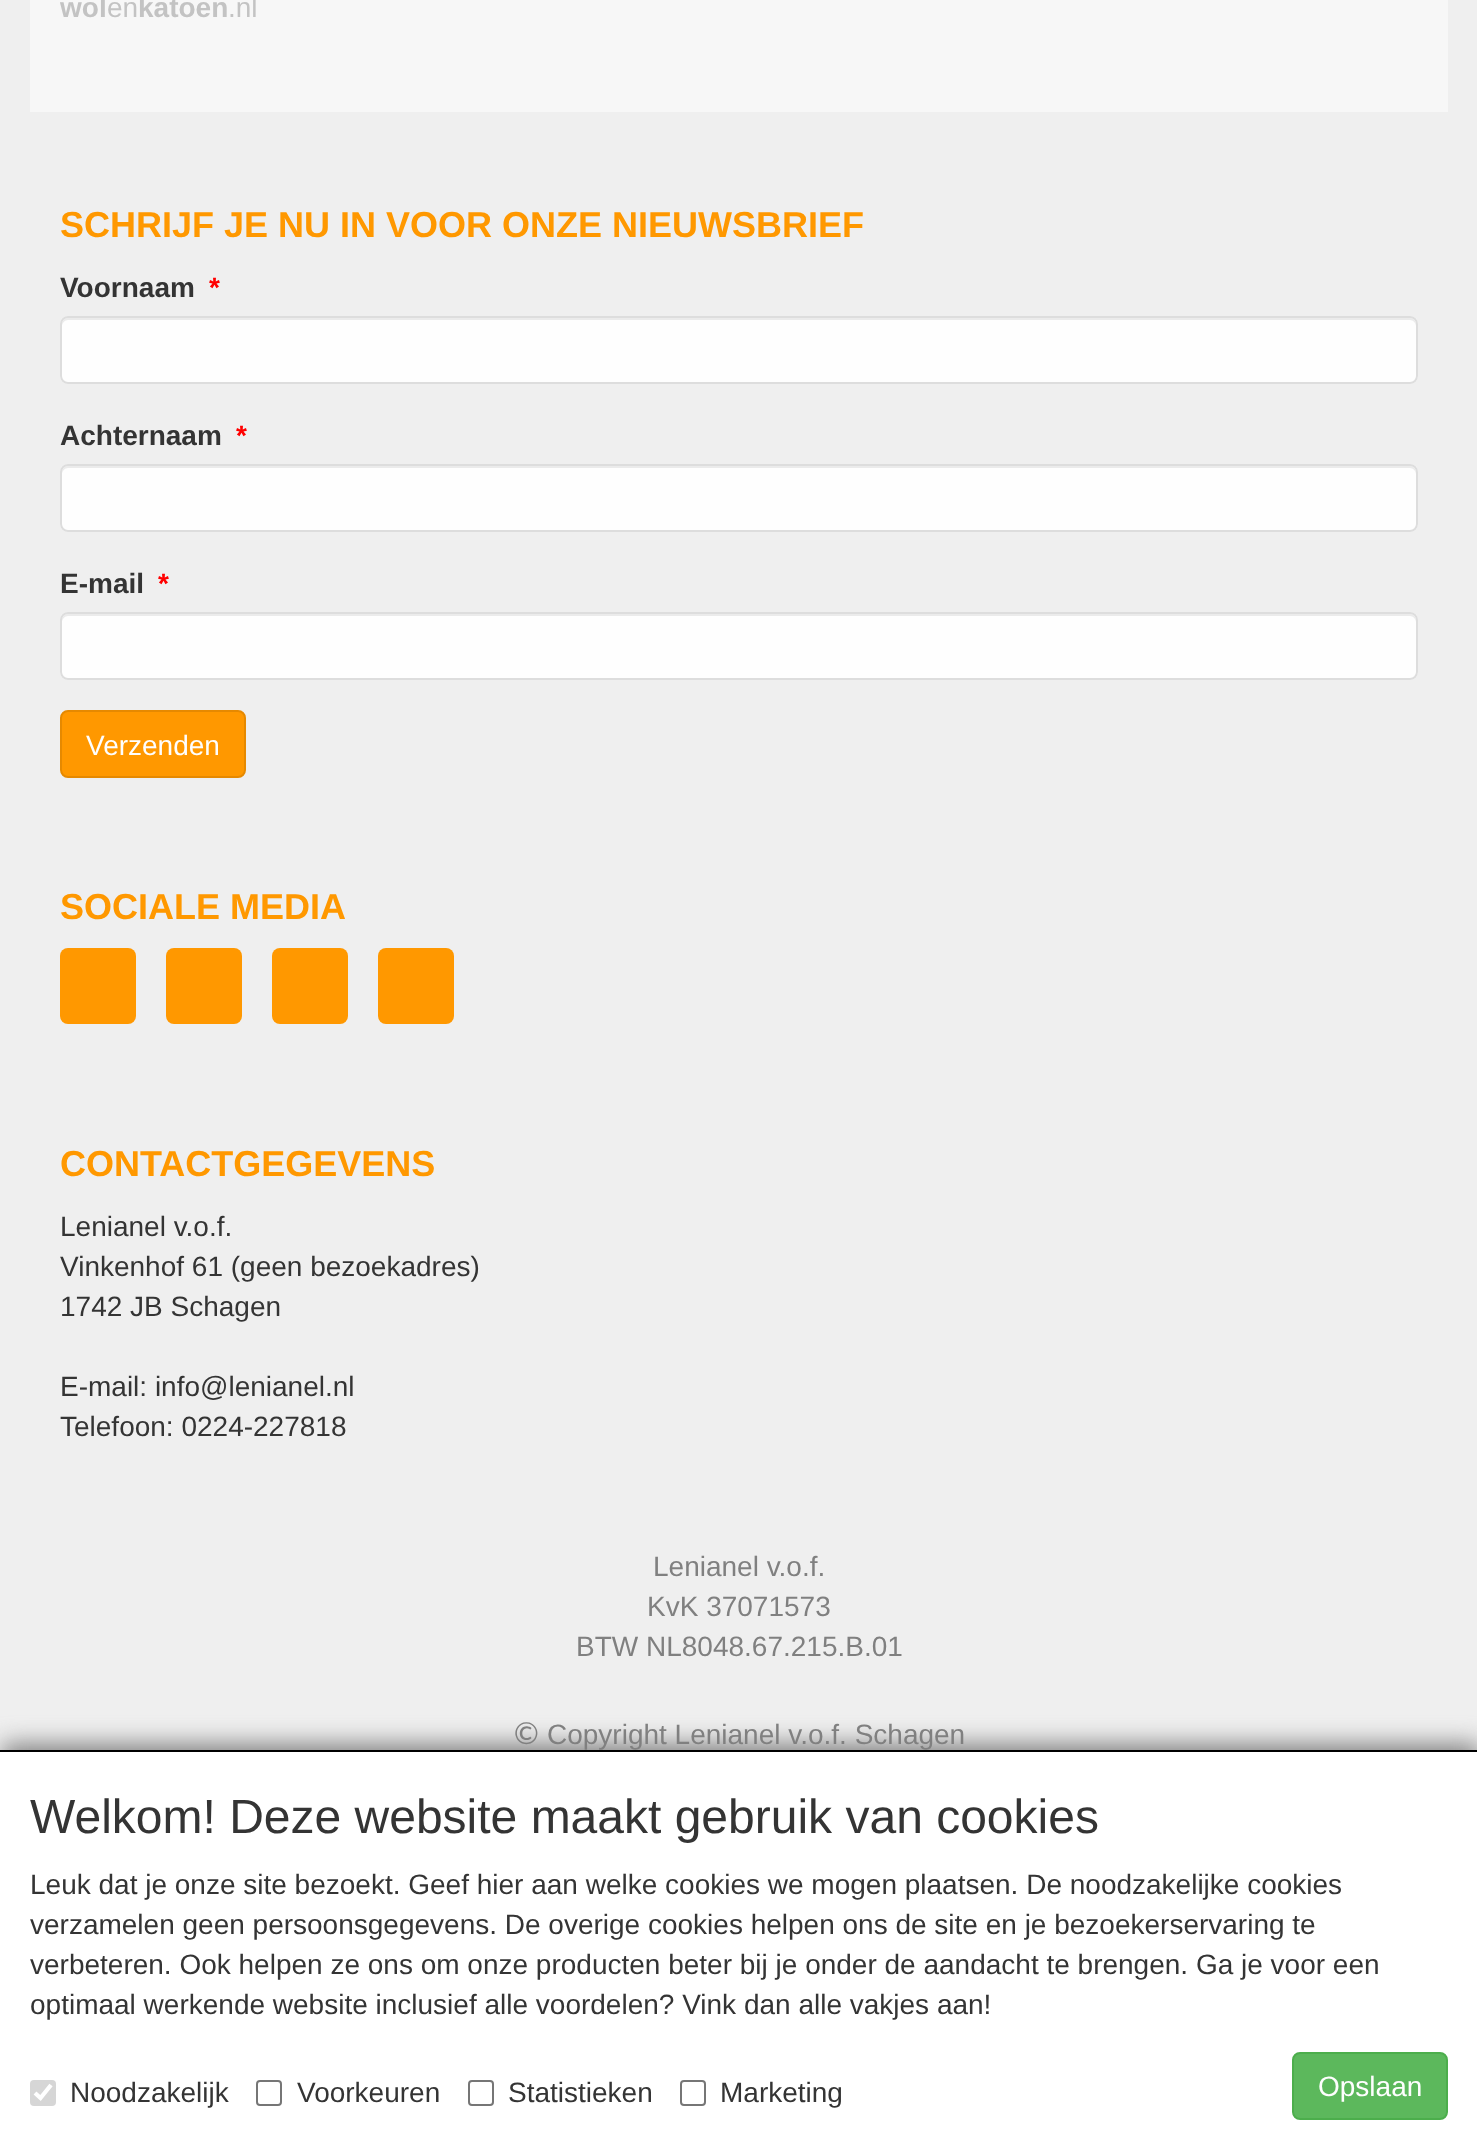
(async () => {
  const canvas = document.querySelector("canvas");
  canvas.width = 1477;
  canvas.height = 2148;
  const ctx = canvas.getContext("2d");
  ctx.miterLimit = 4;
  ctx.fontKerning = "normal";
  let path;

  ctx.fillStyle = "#efefef";
  ctx.fillRect(0, 0, 1477, 2148);
  ctx.fillStyle = "#f7f7f7";
  ctx.fillRect(30, 0, 1418, 112);
  ctx.fillStyle = "#fefefe";
  ctx.beginPath();
  ctx.roundRect(60, 316, 1358, 68, 8);
  ctx.fill();
  ctx.fillStyle = "#ebebeb";
  path = new Path2D("M68 320H1410C1413 320 1416 323 1416 326V324C1416 321 1413 318 1410 318H68C65 318 62 321 62 324V326C62 323 65 320 68 320Z");
  ctx.fill(path);
  ctx.beginPath();
  ctx.roundRect(61, 317, 1356, 66, 7);
  ctx.strokeStyle = "#dddddd";
  ctx.lineWidth = 2;
  ctx.stroke();
  ctx.fillStyle = "#fefefe";
  ctx.beginPath();
  ctx.roundRect(60, 464, 1358, 68, 8);
  ctx.fill();
  ctx.fillStyle = "#ebebeb";
  path = new Path2D("M68 468H1410C1413 468 1416 471 1416 474V472C1416 469 1413 466 1410 466H68C65 466 62 469 62 472V474C62 471 65 468 68 468Z");
  ctx.fill(path);
  ctx.beginPath();
  ctx.roundRect(61, 465, 1356, 66, 7);
  ctx.stroke();
  ctx.fillStyle = "#fefefe";
  ctx.beginPath();
  ctx.roundRect(60, 612, 1358, 68, 8);
  ctx.fill();
  ctx.fillStyle = "#ebebeb";
  path = new Path2D("M68 616H1410C1413 616 1416 619 1416 622V620C1416 617 1413 614 1410 614H68C65 614 62 617 62 620V622C62 619 65 616 68 616Z");
  ctx.fill(path);
  ctx.beginPath();
  ctx.roundRect(61, 613, 1356, 66, 7);
  ctx.stroke();
  ctx.fillStyle = "#ff9800";
  ctx.beginPath();
  ctx.roundRect(61, 711, 184, 66, 7);
  ctx.fill();
  ctx.strokeStyle = "#e68900";
  ctx.stroke();
  ctx.beginPath();
  ctx.roundRect(60, 948, 76, 76, 8);
  ctx.fill();
  ctx.beginPath();
  ctx.roundRect(166, 948, 76, 76, 8);
  ctx.fill();
  ctx.beginPath();
  ctx.roundRect(272, 948, 76, 76, 8);
  ctx.fill();
  ctx.beginPath();
  ctx.roundRect(378, 948, 76, 76, 8);
  ctx.fill();
  ctx.fillStyle = "#808080";
  ctx.filter = "blur(12px)";
  ctx.beginPath();
  ctx.rect(2, 1744, 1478, 398);
  ctx.fill();
  ctx.filter = "none";
  ctx.fillStyle = "#ffffff";
  ctx.fillRect(0, 1752, 1477, 396);
  ctx.fillStyle = "#000000";
  ctx.fillRect(0, 1750, 1477, 2);
  ctx.fillStyle = "#d6d6d6";
  ctx.beginPath();
  ctx.roundRect(30, 2080, 26, 26, 4);
  ctx.fill();
  path = new Path2D("M35 2093L40.5 2098L51 2085");
  ctx.strokeStyle = "#ffffff";
  ctx.lineWidth = 4.2;
  ctx.stroke(path);
  ctx.beginPath();
  ctx.roundRect(257, 2081, 24, 24, 3);
  ctx.strokeStyle = "#767676";
  ctx.lineWidth = 2;
  ctx.stroke();
  ctx.beginPath();
  ctx.roundRect(469, 2081, 24, 24, 3);
  ctx.stroke();
  ctx.beginPath();
  ctx.roundRect(681, 2081, 24, 24, 3);
  ctx.stroke();
  ctx.fillStyle = "#5cb85c";
  ctx.beginPath();
  ctx.roundRect(1293, 2053, 154, 66, 7);
  ctx.fill();
  ctx.strokeStyle = "#4cae4c";
  ctx.stroke();
  ctx.font = "bold 28px Liberation Sans";
  ctx.fillStyle = "#c3c3c3";
  ctx.fillText("wol", 60, 17);
  ctx.font = "28px Liberation Sans";
  ctx.fillText("en", 107, 17);
  ctx.font = "bold 28px Liberation Sans";
  ctx.fillText("katoen", 138, 17);
  ctx.font = "28px Liberation Sans";
  ctx.fillText(".nl", 228, 17);
  ctx.font = "bold 36px Liberation Sans";
  ctx.fillStyle = "#ff9800";
  ctx.fillText("SCHRIJF JE NU IN VOOR ONZE NIEUWSBRIEF", 60, 237);
  ctx.font = "bold 28px Liberation Sans";
  ctx.fillStyle = "#343434";
  ctx.fillText("Voornaam", 60, 297);
  ctx.fillStyle = "#ff0000";
  ctx.fillText("*", 209, 297);
  ctx.fillStyle = "#343434";
  ctx.fillText("Achternaam", 60, 445);
  ctx.fillStyle = "#ff0000";
  ctx.fillText("*", 236, 445);
  ctx.fillStyle = "#343434";
  ctx.fillText("E-mail", 60, 593);
  ctx.fillStyle = "#ff0000";
  ctx.fillText("*", 158, 593);
  ctx.font = "28px Liberation Sans";
  ctx.fillStyle = "#fefefe";
  ctx.fillText("Verzenden", 86, 755);
  ctx.font = "bold 36px Liberation Sans";
  ctx.fillStyle = "#ff9800";
  ctx.fillText("SOCIALE MEDIA", 60, 919);
  ctx.fillText("CONTACTGEGEVENS", 60, 1176);
  ctx.font = "28px Liberation Sans";
  ctx.fillStyle = "#343434";
  for (const [text, x, y] of [
    ["Lenianel v.o.f.", 60, 1236],
    ["Vinkenhof 61 (geen bezoekadres)", 60, 1276],
    ["1742 JB Schagen", 60, 1316],
    ["E-mail: info@lenianel.nl", 60, 1396],
    ["Telefoon: 0224-227818", 60, 1436],
  ]) {
    ctx.fillText(text, x, y);
  }
  ctx.fillStyle = "#808080";
  for (const [text, x, y] of [
    ["Lenianel v.o.f.", 653, 1576],
    ["KvK 37071573", 647, 1616],
    ["BTW NL8048.67.215.B.01", 576, 1656],
  ]) {
    ctx.fillText(text, x, y);
  }
  ctx.font = "32px Carlito";
  ctx.fillText("©", 513, 1744);
  ctx.font = "28px Liberation Sans";
  ctx.fillText("Copyright Lenianel v.o.f. Schagen", 547, 1744);
  ctx.font = "48px Liberation Sans";
  ctx.fillStyle = "#343434";
  ctx.fillText("Welkom! Deze website maakt gebruik van cookies", 30, 1833);
  ctx.font = "28px Liberation Sans";
  for (const [text, x, y] of [
    ["Leuk dat je onze site bezoekt. Geef hier aan welke cookies we mogen plaatsen. De noodzakelijke cookies", 30, 1894],
    ["verzamelen geen persoonsgegevens. De overige cookies helpen ons de site en je bezoekerservaring te", 30, 1934],
    ["verbeteren. Ook helpen ze ons om onze producten beter bij je onder de aandacht te brengen. Ga je voor een", 30, 1974],
    ["optimaal werkende website inclusief alle voordelen? Vink dan alle vakjes aan!", 30, 2014],
    ["Noodzakelijk", 70, 2102],
    ["Voorkeuren", 297, 2102],
    ["Statistieken", 508, 2102],
    ["Marketing", 720, 2102],
  ]) {
    ctx.fillText(text, x, y);
  }
  ctx.fillStyle = "#fefefe";
  ctx.fillText("Opslaan", 1318, 2096);
})();
